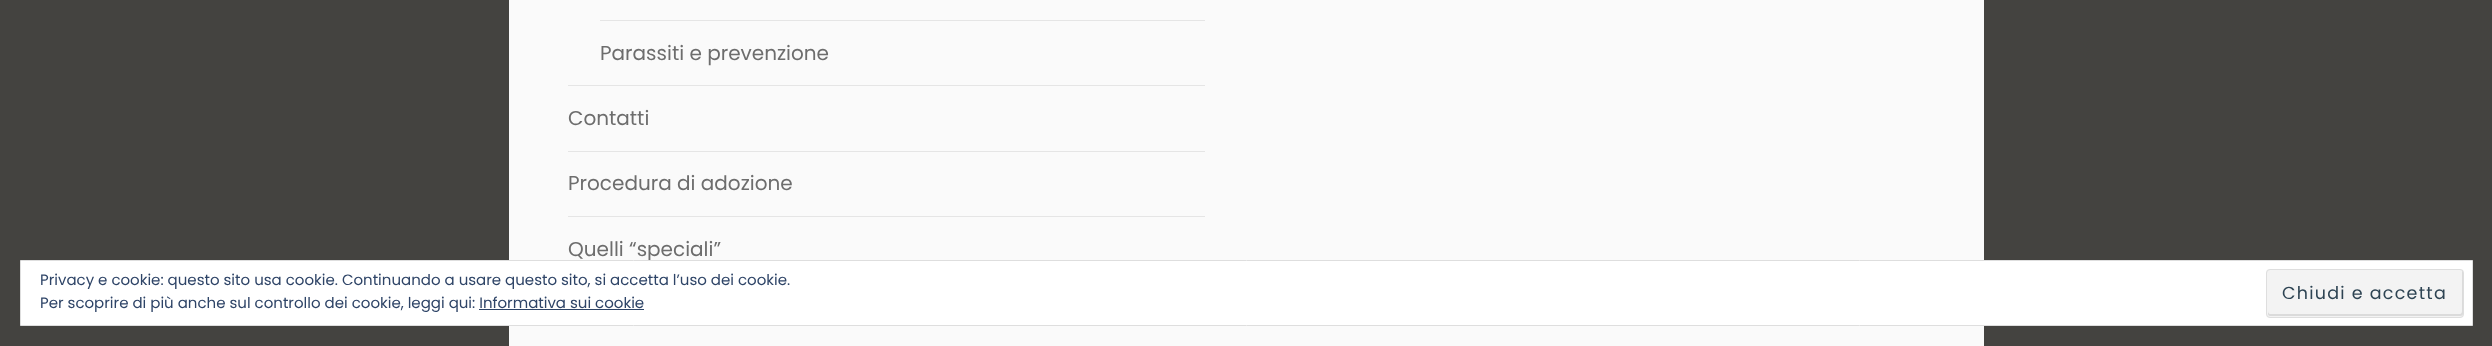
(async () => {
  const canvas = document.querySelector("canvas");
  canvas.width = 2492;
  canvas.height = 346;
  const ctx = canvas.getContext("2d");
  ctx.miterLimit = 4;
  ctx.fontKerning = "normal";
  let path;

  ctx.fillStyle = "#444340";
  ctx.fillRect(0, 0, 2492, 346);
  for (const [x, y, w, h, color] of [
    [509, 0, 1475, 346, "#fafafa"],
    [600, 20, 605, 1, "#e5e5e5"],
    [568, 85, 637, 1, "#e5e5e5"],
    [568, 151, 637, 1, "#e5e5e5"],
    [568, 216, 637, 1, "#e5e5e5"],
  ]) {
    ctx.fillStyle = color;
    ctx.fillRect(x, y, w, h);
  }
  ctx.font = "20px Poppins";
  ctx.fillStyle = "#6d6d6d";
  for (const [text, x, y] of [
    ["Parassiti e prevenzione", 600, 60],
    ["Contatti", 568, 125],
    ["Procedura di adozione", 568, 190],
    ["Quelli “speciali”", 568, 256],
  ]) {
    ctx.fillText(text, x, y);
  }
  ctx.fillStyle = "#ffffff";
  ctx.beginPath();
  ctx.rect(20.5, 260.5, 2452, 65);
  ctx.fill();
  ctx.strokeStyle = "#dedede";
  ctx.stroke();
  ctx.font = "15px Poppins";
  ctx.fillStyle = "#2e4467";
  ctx.fillText("Privacy e cookie: questo sito usa cookie. Continuando a usare questo sito, si accetta l’uso dei cookie.", 40, 285);
  ctx.fillStyle = "#f3f3f3";
  ctx.beginPath();
  ctx.roundRect(2266, 269, 198, 49, 4);
  ctx.fill();
  ctx.fillStyle = "#dbdbdb";
  path = new Path2D("M2268 311V314C2268 315 2269 316 2270 316H2460C2462 316 2463 315 2463 314V272C2463 272 2463 271 2462 270V311C2462 313 2461 314 2460 314H2270C2269 314 2268 313 2268 311Z");
  ctx.fill(path);
  ctx.beginPath();
  ctx.roundRect(2266.5, 269.5, 197, 48, 3.5);
  ctx.stroke();
  ctx.letterSpacing = "1.25px";
  ctx.font = "17.5px Poppins";
  ctx.fillStyle = "#2e4453";
  ctx.fillText("Chiudi e accetta", 2282, 299);
  ctx.letterSpacing = "0px";
  ctx.font = "15px Poppins";
  ctx.fillStyle = "#2e4467";
  ctx.fillText("Per scoprire di più anche sul controllo dei cookie, leggi qui: Informativa sui cookie", 40, 308);
  ctx.fillRect(479, 309, 165, 1);
})();
